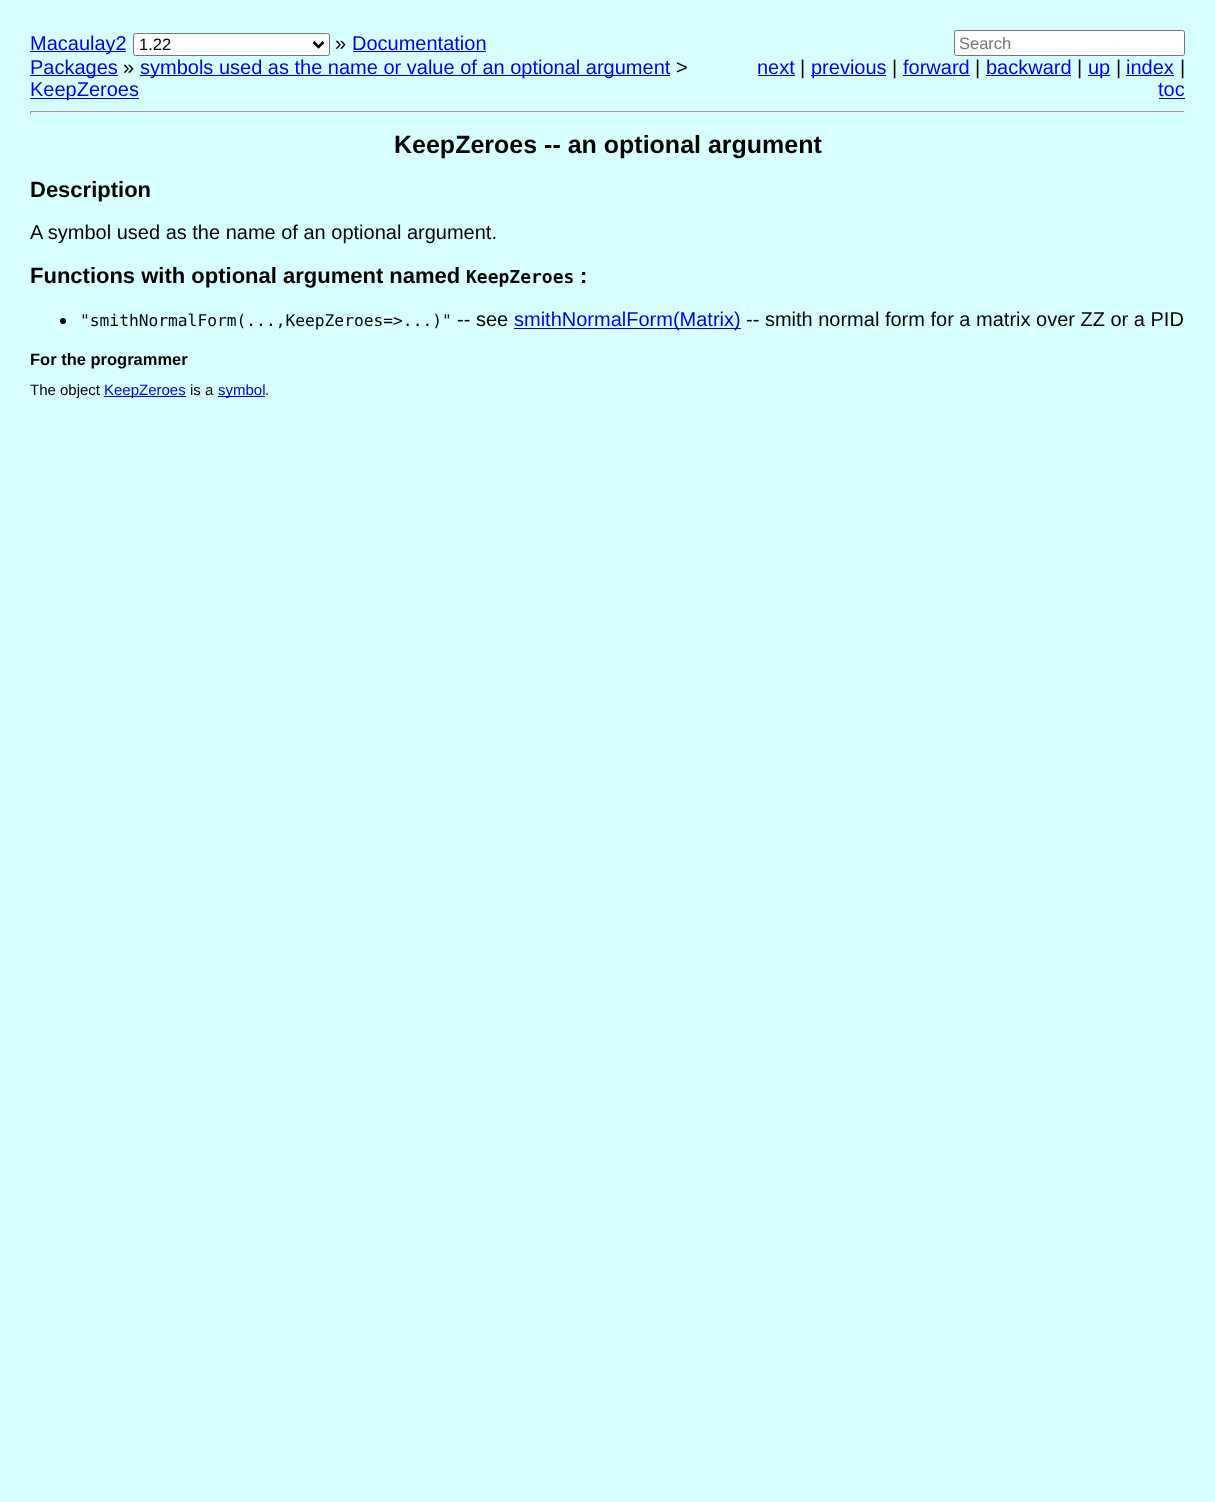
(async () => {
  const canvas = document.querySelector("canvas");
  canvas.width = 1215;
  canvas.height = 1502;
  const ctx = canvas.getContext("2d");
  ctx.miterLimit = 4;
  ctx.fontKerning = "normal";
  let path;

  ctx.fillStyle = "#d8ffff";
  ctx.fillRect(0, 0, 1215, 1502);
  ctx.fillStyle = "#0000ee";
  ctx.fillRect(30, 51, 96, 1);
  ctx.fillStyle = "#ffffff";
  ctx.beginPath();
  ctx.roundRect(133.5, 33.5, 196, 22, 2);
  ctx.fill();
  ctx.strokeStyle = "#767676";
  ctx.stroke();
  path = new Path2D("M313.5 42L318.5 47L323.5 42");
  ctx.strokeStyle = "#000000";
  ctx.lineWidth = 2.5;
  ctx.stroke(path);
  for (const [x, y, w, h, color] of [
    [353, 51, 133, 1, "#0000ee"],
    [30, 75, 88, 1, "#0000ee"],
    [140, 75, 530, 1, "#0000ee"],
    [30, 98, 109, 1, "#0000ee"],
  ]) {
    ctx.fillStyle = color;
    ctx.fillRect(x, y, w, h);
  }
  ctx.fillStyle = "#ffffff";
  ctx.beginPath();
  ctx.roundRect(954.5, 30.5, 230, 25, 2);
  ctx.fill();
  ctx.strokeStyle = "#767676";
  ctx.lineWidth = 1;
  ctx.stroke();
  for (const [x, y, w, h, color] of [
    [758, 75, 37, 1, "#0000ee"],
    [811, 75, 75, 1, "#0000ee"],
    [903, 75, 67, 1, "#0000ee"],
    [986, 75, 85, 1, "#0000ee"],
    [1088, 75, 22, 1, "#0000ee"],
    [1126, 75, 48, 1, "#0000ee"],
    [1159, 98, 26, 1, "#0000ee"],
    [30, 111, 1155, 1, "#9f9f9f"],
    [1184, 111, 1, 3, "#eeeeee"],
    [30, 113, 1155, 1, "#eeeeee"],
    [30, 111, 1, 3, "#9f9f9f"],
  ]) {
    ctx.fillStyle = color;
    ctx.fillRect(x, y, w, h);
  }
  ctx.fillStyle = "#000000";
  ctx.beginPath();
  ctx.arc(63, 321, 3, 0, Math.PI * 2);
  ctx.fill();
  for (const [x, y, w, h, color] of [
    [514, 328, 227, 1, "#0000ee"],
    [104, 396, 82, 1, "#0000ee"],
    [218, 396, 47, 1, "#0000ee"],
  ]) {
    ctx.fillStyle = color;
    ctx.fillRect(x, y, w, h);
  }
  ctx.font = "20px Liberation Sans";
  ctx.fillText("Macaulay2", 30, 50);
  ctx.font = "16.5px Liberation Sans";
  ctx.fillStyle = "#000000";
  ctx.fillText("1.22", 139, 50);
  ctx.font = "20px Liberation Sans";
  ctx.fillText("»", 335, 50);
  ctx.fillStyle = "#0000ee";
  ctx.fillText("Documentation", 352, 50);
  ctx.fillText("Packages", 30, 74);
  ctx.fillStyle = "#000000";
  ctx.fillText("»", 123, 74);
  ctx.fillStyle = "#0000ee";
  ctx.fillText("symbols used as the name or value of an optional argument", 140, 74);
  ctx.fillStyle = "#000000";
  ctx.fillText(">", 676, 74);
  ctx.fillStyle = "#0000ee";
  ctx.fillText("KeepZeroes", 30, 96);
  ctx.font = "16.5px Liberation Sans";
  ctx.fillStyle = "#757575";
  ctx.fillText("Search", 959, 49);
  ctx.font = "20px Liberation Sans";
  ctx.fillStyle = "#0000ee";
  ctx.fillText("next", 757, 74);
  ctx.fillStyle = "#000000";
  ctx.fillText("|", 800, 74);
  ctx.fillStyle = "#0000ee";
  ctx.fillText("previous", 811, 74);
  ctx.fillStyle = "#000000";
  ctx.fillText("|", 892, 74);
  ctx.fillStyle = "#0000ee";
  ctx.fillText("forward", 903, 74);
  ctx.fillStyle = "#000000";
  ctx.fillText("|", 975, 74);
  ctx.fillStyle = "#0000ee";
  ctx.fillText("backward", 986, 74);
  ctx.fillStyle = "#000000";
  ctx.fillText("|", 1077, 74);
  ctx.fillStyle = "#0000ee";
  ctx.fillText("up", 1088, 74);
  ctx.fillStyle = "#000000";
  ctx.fillText("|", 1116, 74);
  ctx.fillStyle = "#0000ee";
  ctx.fillText("index", 1126, 74);
  ctx.fillStyle = "#000000";
  ctx.fillText("|", 1180, 74);
  ctx.fillStyle = "#0000ee";
  ctx.fillText("toc", 1158, 96);
  ctx.font = "bold 25px Liberation Sans";
  ctx.fillStyle = "#000000";
  ctx.fillText("KeepZeroes -- an optional argument", 394, 153);
  ctx.font = "bold 22px Liberation Sans";
  ctx.fillText("Description", 30, 197);
  ctx.font = "20px Liberation Sans";
  ctx.fillText("A symbol used as the name of an optional argument.", 30, 239);
  ctx.font = "bold 22px Liberation Sans";
  ctx.fillText("Functions with optional argument named", 30, 283);
  ctx.font = "bold 18px DejaVu Sans Mono";
  ctx.fillText("KeepZeroes", 466, 283);
  ctx.font = "bold 22px Liberation Sans";
  ctx.fillText(":", 580, 283);
  ctx.font = "16.25px DejaVu Sans Mono";
  ctx.fillText("\"smithNormalForm(...,KeepZeroes=>...)\"", 80, 326);
  ctx.font = "20px Liberation Sans";
  ctx.fillText("-- see", 457, 326);
  ctx.fillStyle = "#0000ee";
  ctx.fillText("smithNormalForm(Matrix)", 514, 326);
  ctx.fillStyle = "#000000";
  ctx.fillText("-- smith normal form for a matrix over ZZ or a PID", 746, 326);
  ctx.font = "bold 16.5px Liberation Sans";
  ctx.fillText("For the programmer", 30, 365);
  ctx.font = "15px Liberation Sans";
  ctx.fillText("The object", 30, 395);
  ctx.fillStyle = "#0000ee";
  ctx.fillText("KeepZeroes", 104, 395);
  ctx.fillStyle = "#000000";
  ctx.fillText("is a", 190, 395);
  ctx.fillStyle = "#0000ee";
  ctx.fillText("symbol", 218, 395);
  ctx.fillStyle = "#000000";
  ctx.fillText(".", 265, 395);
})();
